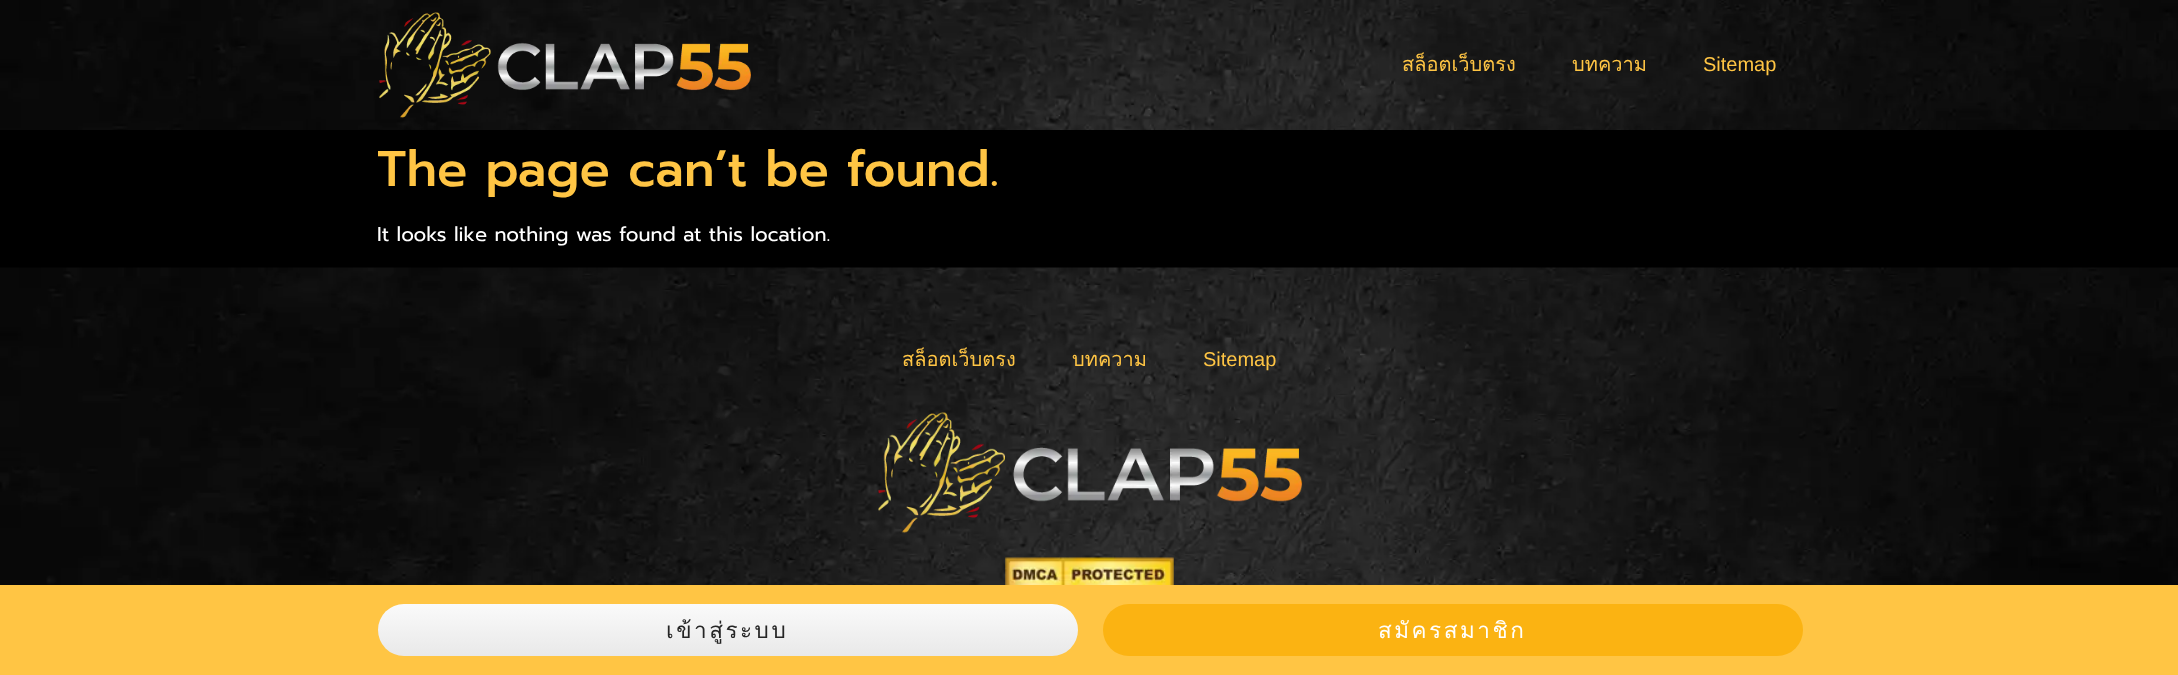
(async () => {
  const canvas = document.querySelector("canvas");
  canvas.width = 2178;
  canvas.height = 675;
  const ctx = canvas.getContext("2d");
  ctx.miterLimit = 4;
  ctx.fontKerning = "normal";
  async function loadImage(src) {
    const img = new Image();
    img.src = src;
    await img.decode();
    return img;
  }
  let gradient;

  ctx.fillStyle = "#000000";
  ctx.fillRect(0, 0, 2178, 675);
  ctx.drawImage(await loadImage("img/1.png"), 0, 0, 2178, 130);
  ctx.drawImage(await loadImage("img/2.png"), 379, 12, 372, 106);
  ctx.drawImage(await loadImage("img/3.png"), 0, 267, 2178, 318);
  ctx.drawImage(await loadImage("img/4.png"), 878, 412, 425, 121);
  ctx.drawImage(await loadImage("img/5.png"), 1005, 557, 169, 28);
  ctx.fillStyle = "#ffc544";
  ctx.fillRect(0, 585, 2178, 90);
  gradient = ctx.createLinearGradient(728, 604, 728, 656);
  gradient.addColorStop(0, "#fafafa");
  gradient.addColorStop(1, "#e9e9e9");
  ctx.fillStyle = gradient;
  ctx.beginPath();
  ctx.roundRect(378, 604, 700, 52, 26);
  ctx.fill();
  ctx.fillStyle = "#fbb312";
  ctx.beginPath();
  ctx.roundRect(1103, 604, 700, 52, 26);
  ctx.fill();
  ctx.font = "20px Loma";
  ctx.fillStyle = "#ffc544";
  ctx.fillText("สล็อตเว็บตรง", 1402, 71);
  ctx.fillText("บทความ", 1572, 71);
  ctx.font = "20px Liberation Sans";
  ctx.fillText("Sitemap", 1703, 71);
  ctx.font = "500 50px Prompt";
  ctx.fillText("The page can’t be found.", 377, 186);
  ctx.font = "20px Prompt";
  ctx.fillStyle = "#ffffff";
  ctx.fillText("It looks like nothing was found at this location.", 377, 241);
  ctx.font = "20px Loma";
  ctx.fillStyle = "#ffc544";
  ctx.fillText("สล็อตเว็บตรง", 902, 366);
  ctx.fillText("บทความ", 1072, 366);
  ctx.font = "20px Liberation Sans";
  ctx.fillText("Sitemap", 1203, 366);
  ctx.letterSpacing = "2.5px";
  ctx.font = "22.5px Loma";
  ctx.fillStyle = "#252525";
  ctx.fillText("เข้าสู่ระบบ", 666, 638);
  ctx.fillStyle = "#ffffff";
  ctx.fillText("สมัครสมาชิก", 1378, 638);
})();
